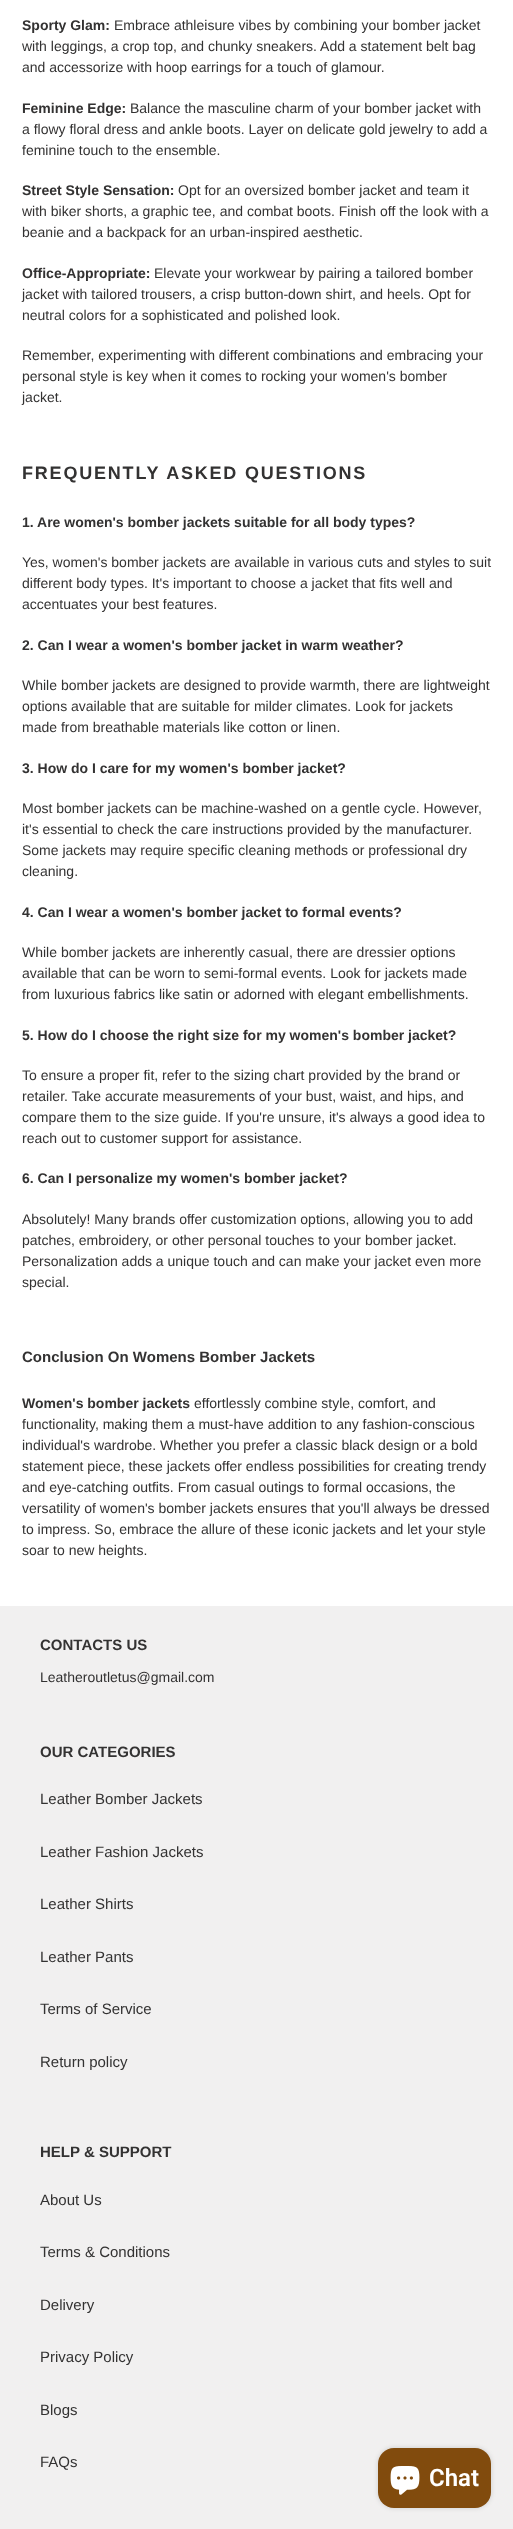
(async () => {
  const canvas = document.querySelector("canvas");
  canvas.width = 513;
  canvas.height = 2529;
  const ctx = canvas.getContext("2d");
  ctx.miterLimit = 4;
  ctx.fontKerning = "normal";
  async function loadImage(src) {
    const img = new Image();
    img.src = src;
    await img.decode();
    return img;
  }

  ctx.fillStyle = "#ffffff";
  ctx.fillRect(0, 0, 513, 2529);
  ctx.fillStyle = "#f1f0f0";
  ctx.fillRect(0, 1606, 513, 923);
  ctx.fillStyle = "rgba(0, 0, 0, 0.15)";
  ctx.filter = "blur(2.5px)";
  ctx.beginPath();
  ctx.roundRect(378, 2448, 113, 60, 16);
  ctx.fill();
  ctx.filter = "none";
  ctx.fillStyle = "#814b0d";
  ctx.beginPath();
  ctx.roundRect(378, 2448, 113, 60, 16);
  ctx.fill();
  ctx.drawImage(await loadImage("img/1.png"), 390, 2466, 30, 29);
  ctx.font = "bold 14px Liberation Sans";
  ctx.fillStyle = "#333232";
  ctx.fillText("Sporty Glam:", 22, 30);
  ctx.font = "14px Liberation Sans";
  for (const [text, x, y] of [
    ["Embrace athleisure vibes by combining your bomber jacket", 114, 30],
    ["with leggings, a crop top, and chunky sneakers. Add a statement belt bag", 22, 51],
    ["and accessorize with hoop earrings for a touch of glamour.", 22, 72],
  ]) {
    ctx.fillText(text, x, y);
  }
  ctx.font = "bold 14px Liberation Sans";
  ctx.fillText("Feminine Edge:", 22, 113);
  ctx.font = "14px Liberation Sans";
  for (const [text, x, y] of [
    ["Balance the masculine charm of your bomber jacket with", 130, 113],
    ["a flowy floral dress and ankle boots. Layer on delicate gold jewelry to add a", 22, 134],
    ["feminine touch to the ensemble.", 22, 155],
  ]) {
    ctx.fillText(text, x, y);
  }
  ctx.font = "bold 14px Liberation Sans";
  ctx.fillText("Street Style Sensation:", 22, 195);
  ctx.font = "14px Liberation Sans";
  for (const [text, x, y] of [
    ["Opt for an oversized bomber jacket and team it", 178, 195],
    ["with biker shorts, a graphic tee, and combat boots. Finish off the look with a", 22, 216],
    ["beanie and a backpack for an urban-inspired aesthetic.", 22, 237],
  ]) {
    ctx.fillText(text, x, y);
  }
  ctx.font = "bold 14px Liberation Sans";
  ctx.fillText("Office-Appropriate:", 22, 278);
  ctx.font = "14px Liberation Sans";
  for (const [text, x, y] of [
    ["Elevate your workwear by pairing a tailored bomber", 154, 278],
    ["jacket with tailored trousers, a crisp button-down shirt, and heels. Opt for", 22, 299],
    ["neutral colors for a sophisticated and polished look.", 22, 320],
    ["Remember, experimenting with different combinations and embracing your", 22, 360],
    ["personal style is key when it comes to rocking your women's bomber", 22, 381],
    ["jacket.", 22, 402],
  ]) {
    ctx.fillText(text, x, y);
  }
  ctx.letterSpacing = "1.8px";
  ctx.font = "bold 18px Liberation Sans";
  ctx.fillText("FREQUENTLY ASKED QUESTIONS", 22, 479);
  ctx.letterSpacing = "0px";
  ctx.font = "bold 14px Liberation Sans";
  ctx.fillText("1. Are women's bomber jackets suitable for all body types?", 22, 527);
  ctx.font = "14px Liberation Sans";
  for (const [text, x, y] of [
    ["Yes, women's bomber jackets are available in various cuts and styles to suit", 22, 567],
    ["different body types. It's important to choose a jacket that fits well and", 22, 588],
    ["accentuates your best features.", 22, 609],
  ]) {
    ctx.fillText(text, x, y);
  }
  ctx.font = "bold 14px Liberation Sans";
  ctx.fillText("2. Can I wear a women's bomber jacket in warm weather?", 22, 650);
  ctx.font = "14px Liberation Sans";
  for (const [text, x, y] of [
    ["While bomber jackets are designed to provide warmth, there are lightweight", 22, 690],
    ["options available that are suitable for milder climates. Look for jackets", 22, 711],
    ["made from breathable materials like cotton or linen.", 22, 732],
  ]) {
    ctx.fillText(text, x, y);
  }
  ctx.font = "bold 14px Liberation Sans";
  ctx.fillText("3. How do I care for my women's bomber jacket?", 22, 773);
  ctx.font = "14px Liberation Sans";
  for (const [text, x, y] of [
    ["Most bomber jackets can be machine-washed on a gentle cycle. However,", 22, 813],
    ["it's essential to check the care instructions provided by the manufacturer.", 22, 834],
    ["Some jackets may require specific cleaning methods or professional dry", 22, 855],
    ["cleaning.", 22, 876],
  ]) {
    ctx.fillText(text, x, y);
  }
  ctx.font = "bold 14px Liberation Sans";
  ctx.fillText("4. Can I wear a women's bomber jacket to formal events?", 22, 917);
  ctx.font = "14px Liberation Sans";
  for (const [text, x, y] of [
    ["While bomber jackets are inherently casual, there are dressier options", 22, 957],
    ["available that can be worn to semi-formal events. Look for jackets made", 22, 978],
    ["from luxurious fabrics like satin or adorned with elegant embellishments.", 22, 999],
  ]) {
    ctx.fillText(text, x, y);
  }
  ctx.font = "bold 14px Liberation Sans";
  ctx.fillText("5. How do I choose the right size for my women's bomber jacket?", 22, 1040);
  ctx.font = "14px Liberation Sans";
  for (const [text, x, y] of [
    ["To ensure a proper fit, refer to the sizing chart provided by the brand or", 22, 1080],
    ["retailer. Take accurate measurements of your bust, waist, and hips, and", 22, 1101],
    ["compare them to the size guide. If you're unsure, it's always a good idea to", 22, 1122],
    ["reach out to customer support for assistance.", 22, 1143],
  ]) {
    ctx.fillText(text, x, y);
  }
  ctx.font = "bold 14px Liberation Sans";
  ctx.fillText("6. Can I personalize my women's bomber jacket?", 22, 1183);
  ctx.font = "14px Liberation Sans";
  for (const [text, x, y] of [
    ["Absolutely! Many brands offer customization options, allowing you to add", 22, 1224],
    ["patches, embroidery, or other personal touches to your bomber jacket.", 22, 1245],
    ["Personalization adds a unique touch and can make your jacket even more", 22, 1266],
    ["special.", 22, 1287],
  ]) {
    ctx.fillText(text, x, y);
  }
  ctx.font = "bold 15px Liberation Sans";
  ctx.fillText("Conclusion On Womens Bomber Jackets", 22, 1362);
  ctx.font = "bold 14px Liberation Sans";
  ctx.fillText("Women's bomber jackets", 22, 1408);
  ctx.font = "14px Liberation Sans";
  for (const [text, x, y] of [
    ["effortlessly combine style, comfort, and", 194, 1408],
    ["functionality, making them a must-have addition to any fashion-conscious", 22, 1429],
    ["individual's wardrobe. Whether you prefer a classic black design or a bold", 22, 1450],
    ["statement piece, these jackets offer endless possibilities for creating trendy", 22, 1471],
    ["and eye-catching outfits. From casual outings to formal occasions, the", 22, 1492],
    ["versatility of women's bomber jackets ensures that you'll always be dressed", 22, 1513],
    ["to impress. So, embrace the allure of these iconic jackets and let your style", 22, 1534],
    ["soar to new heights.", 22, 1555],
  ]) {
    ctx.fillText(text, x, y);
  }
  ctx.font = "bold 15px Liberation Sans";
  ctx.fillText("CONTACTS US", 40, 1650);
  ctx.font = "14px Liberation Sans";
  ctx.fillText("Leatheroutletus@gmail.com", 40, 1682);
  ctx.font = "bold 15px Liberation Sans";
  ctx.fillText("OUR CATEGORIES", 40, 1757);
  ctx.font = "15px Liberation Sans";
  for (const [text, x, y] of [
    ["Leather Bomber Jackets", 40, 1804],
    ["Leather Fashion Jackets", 40, 1857],
    ["Leather Shirts", 40, 1909],
    ["Leather Pants", 40, 1962],
    ["Terms of Service", 40, 2014],
    ["Return policy", 40, 2067],
  ]) {
    ctx.fillText(text, x, y);
  }
  ctx.font = "bold 15px Liberation Sans";
  ctx.fillText("HELP & SUPPORT", 40, 2157);
  ctx.font = "15px Liberation Sans";
  for (const [text, x, y] of [
    ["About Us", 40, 2205],
    ["Terms & Conditions", 40, 2257],
    ["Delivery", 40, 2310],
    ["Privacy Policy", 40, 2362],
    ["Blogs", 40, 2415],
    ["FAQs", 40, 2467],
  ]) {
    ctx.fillText(text, x, y);
  }
  ctx.font = "600 24px Roboto";
  ctx.fillStyle = "#ffffff";
  ctx.fillText("Chat", 429, 2486);
})();
